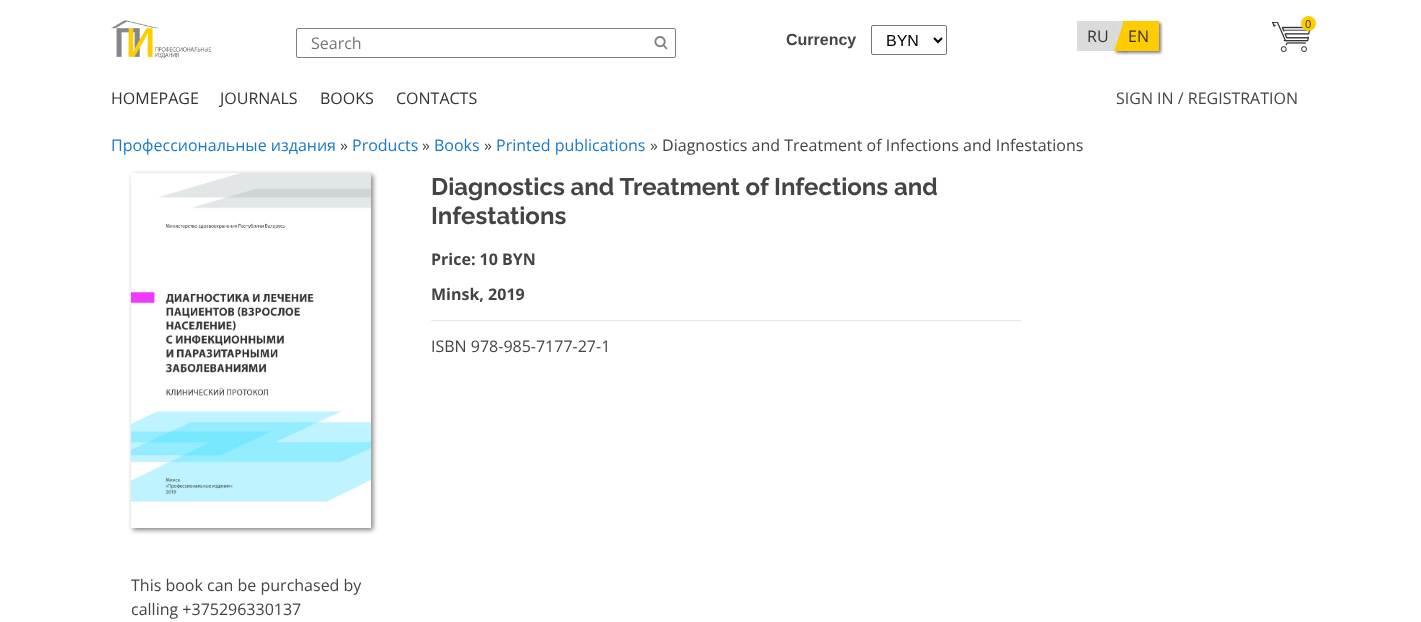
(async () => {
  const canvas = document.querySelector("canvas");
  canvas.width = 1421;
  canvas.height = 622;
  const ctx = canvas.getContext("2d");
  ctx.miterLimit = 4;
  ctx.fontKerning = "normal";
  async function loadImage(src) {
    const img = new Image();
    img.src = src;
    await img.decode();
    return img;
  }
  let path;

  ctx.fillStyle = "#ffffff";
  ctx.fillRect(0, 0, 1421, 622);
  ctx.drawImage(await loadImage("img/1.png"), 111, 20, 100, 38);
  ctx.beginPath();
  ctx.roundRect(296.5, 28.5, 379, 29, 1.5);
  ctx.strokeStyle = "#808080";
  ctx.stroke();
  ctx.drawImage(await loadImage("img/2.png"), 654, 36, 14, 14);
  ctx.drawImage(await loadImage("img/3.png"), 1272, 22, 39, 30);
  ctx.fillStyle = "#fecc00";
  ctx.beginPath();
  ctx.arc(1308.5, 23.5, 7.5, 0, Math.PI * 2);
  ctx.fill();
  ctx.beginPath();
  ctx.roundRect(871.5, 25.5, 75, 29, 1.5);
  ctx.strokeStyle = "#767676";
  ctx.stroke();
  path = new Path2D("M934 38L938 42L942 38");
  ctx.strokeStyle = "#000000";
  ctx.lineWidth = 2;
  ctx.stroke(path);
  ctx.fillStyle = "#dbdbdb";
  ctx.fillRect(1077, 21, 46, 30);
  ctx.save();
  path = new Path2D("M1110 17H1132V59H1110ZM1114 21H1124V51H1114Z");
  ctx.clip(path, "evenodd");
  ctx.fillStyle = "rgba(0, 0, 0, 0.5)";
  ctx.filter = "blur(1.5px)";
  ctx.beginPath();
  ctx.rect(1116, 23, 10, 30);
  ctx.fill();
  ctx.filter = "none";
  ctx.restore();
  ctx.fillStyle = "#fecc00";
  path = new Path2D("M1124 51H1114L1124 21Z");
  ctx.fill(path);
  ctx.fillStyle = "rgba(0, 0, 0, 0.5)";
  ctx.filter = "blur(1.5px)";
  ctx.beginPath();
  ctx.rect(1125, 23, 36, 30);
  ctx.fill();
  ctx.filter = "none";
  ctx.fillStyle = "#fecc00";
  ctx.fillRect(1123, 21, 36, 30);
  ctx.fillStyle = "#e6e6e6";
  ctx.fillRect(431, 320, 590, 1);
  ctx.save();
  path = new Path2D("M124 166H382V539H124ZM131 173H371V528H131Z");
  ctx.clip(path, "evenodd");
  ctx.fillStyle = "rgba(0, 0, 0, 0.5)";
  ctx.filter = "blur(2.5px)";
  ctx.beginPath();
  ctx.rect(133, 175, 240, 355);
  ctx.fill();
  ctx.filter = "none";
  ctx.restore();
  ctx.drawImage(await loadImage("img/4.png"), 131, 173, 240, 329);
  ctx.font = "16px Open Sans";
  ctx.fillStyle = "#757575";
  ctx.fillText("Search", 311, 49);
  ctx.font = "11px Open Sans";
  ctx.fillStyle = "#333333";
  ctx.fillText("0", 1305, 28);
  ctx.font = "bold 16px Liberation Sans";
  ctx.fillStyle = "#444444";
  ctx.fillText("Currency", 786, 45);
  ctx.font = "16px Liberation Sans";
  ctx.fillStyle = "#000000";
  ctx.fillText("BYN", 886, 46);
  ctx.font = "16px Open Sans";
  ctx.fillStyle = "#333333";
  for (const [text, x, y] of [
    ["RU", 1087, 42],
    ["EN", 1128, 42],
    ["HOMEPAGE", 111, 104],
    ["JOURNALS", 220, 104],
    ["BOOKS", 320, 104],
    ["CONTACTS", 396, 104],
  ]) {
    ctx.fillText(text, x, y);
  }
  ctx.fillStyle = "#444444";
  ctx.fillText("SIGN IN / REGISTRATION", 1116, 104);
  ctx.fillStyle = "#1977cc";
  ctx.fillText("Профессиональные издания", 111, 151);
  ctx.fillStyle = "#444444";
  ctx.fillText("»", 340, 151);
  ctx.fillStyle = "#1977cc";
  ctx.fillText("Products", 352, 151);
  ctx.fillStyle = "#444444";
  ctx.fillText("»", 422, 151);
  ctx.fillStyle = "#1977cc";
  ctx.fillText("Books", 434, 151);
  ctx.fillStyle = "#444444";
  ctx.fillText("»", 484, 151);
  ctx.fillStyle = "#1977cc";
  ctx.fillText("Printed publications", 496, 151);
  ctx.fillStyle = "#444444";
  ctx.fillText("» Diagnostics and Treatment of Infections and Infestations", 650, 151);
  ctx.font = "bold 24px Raleway";
  ctx.fillText("Diagnostics and Treatment of Infections and", 431, 195);
  ctx.fillText("Infestations", 431, 224);
  ctx.font = "bold 16px Open Sans";
  ctx.fillText("Price: 10 BYN", 431, 265);
  ctx.fillText("Minsk, 2019", 431, 300);
  ctx.font = "16px Open Sans";
  for (const [text, x, y] of [
    ["ISBN 978-985-7177-27-1", 431, 352],
    ["This book can be purchased by", 131, 591],
    ["calling +375296330137", 131, 615],
  ]) {
    ctx.fillText(text, x, y);
  }
})();
